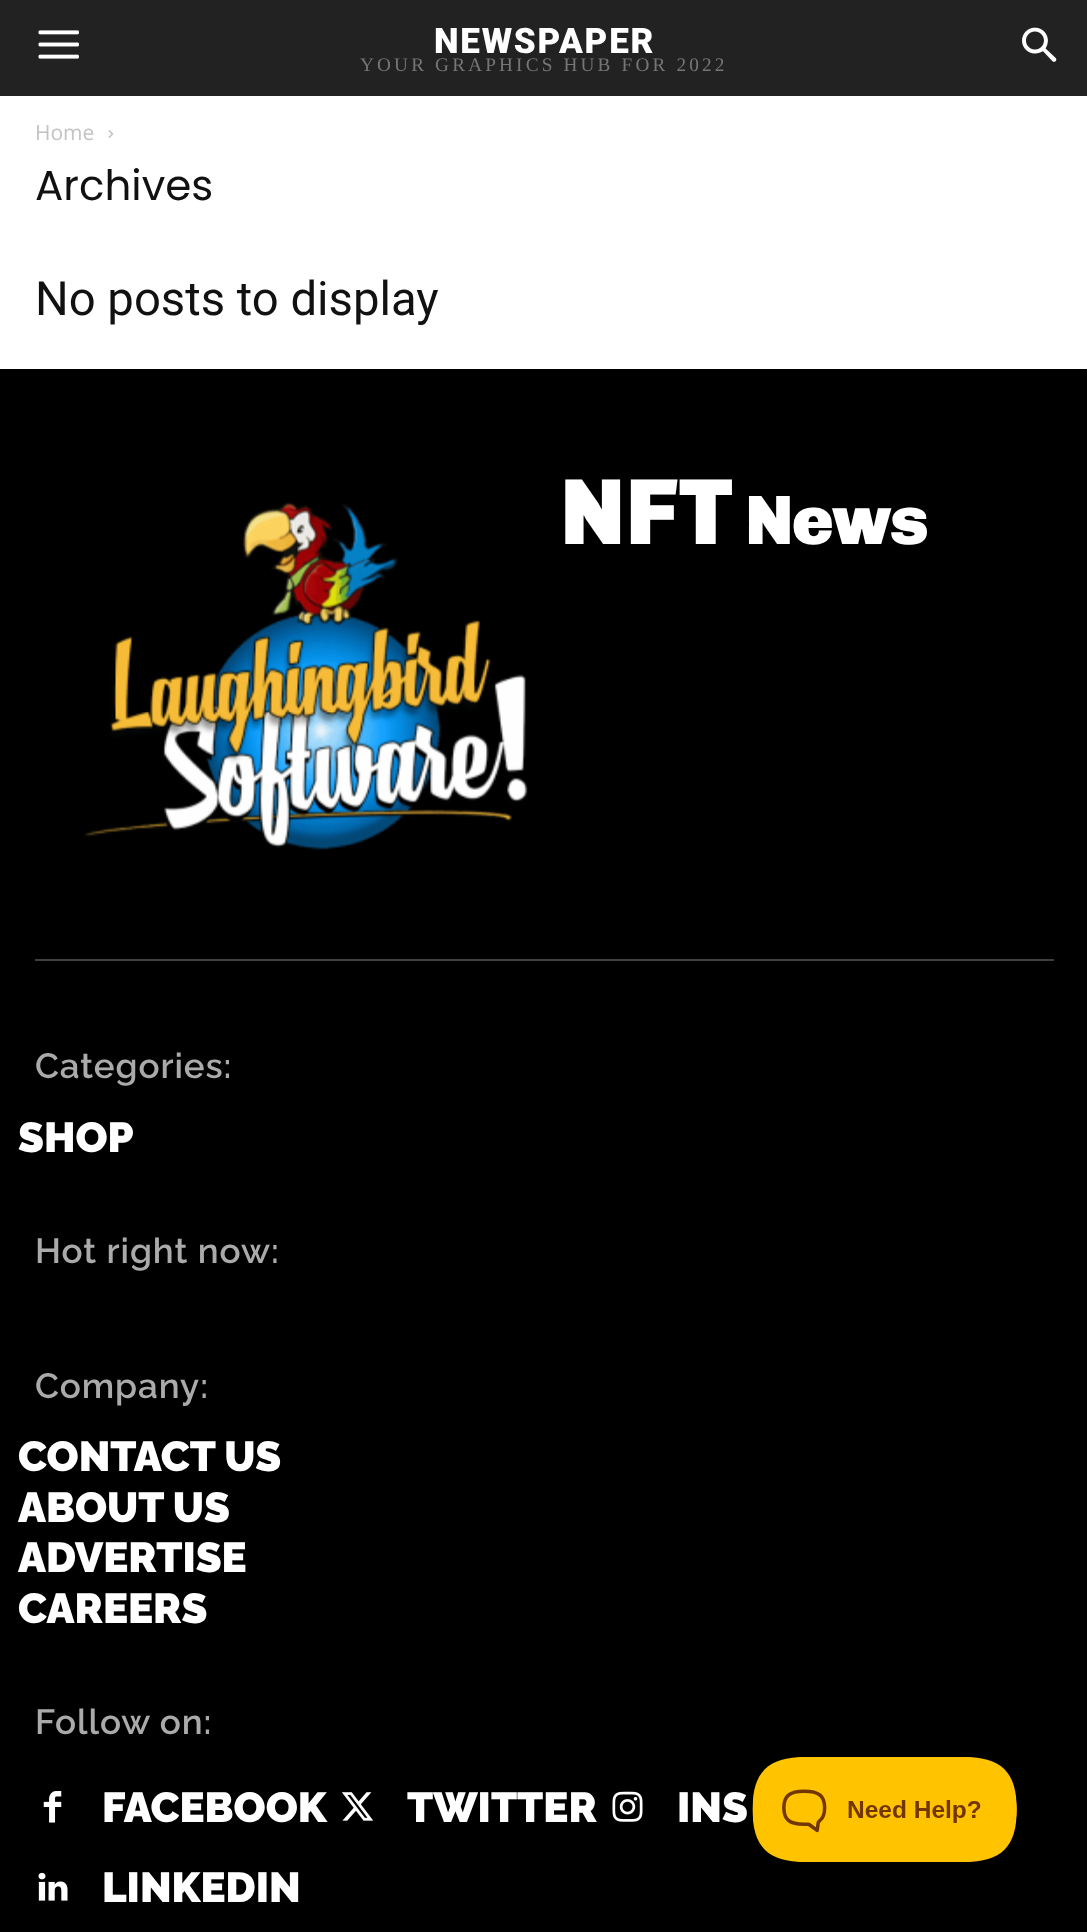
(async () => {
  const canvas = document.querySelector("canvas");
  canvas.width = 1087;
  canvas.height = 1932;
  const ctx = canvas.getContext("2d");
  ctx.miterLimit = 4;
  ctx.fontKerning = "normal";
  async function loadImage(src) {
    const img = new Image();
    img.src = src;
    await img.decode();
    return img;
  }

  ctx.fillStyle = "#ffffff";
  ctx.fillRect(0, 0, 1087, 1932);
  ctx.fillStyle = "#222222";
  ctx.fillRect(0, 0, 1087, 96);
  ctx.drawImage(await loadImage("img/1.png"), 38, 30, 41, 29);
  ctx.drawImage(await loadImage("img/2.png"), 1022, 27, 35, 35);
  ctx.drawImage(await loadImage("img/3.png"), 108, 130, 6, 8);
  ctx.fillStyle = "#000000";
  ctx.fillRect(0, 369, 1087, 1563);
  ctx.fillStyle = "#404040";
  ctx.fillRect(35, 959, 1019, 2);
  ctx.drawImage(await loadImage("img/4.png"), 84, 502, 444, 348);
  ctx.drawImage(await loadImage("img/5.png"), 43, 1791, 19, 32);
  ctx.drawImage(await loadImage("img/6.png"), 341, 1792, 33, 29);
  ctx.drawImage(await loadImage("img/7.png"), 612, 1791, 31, 31);
  ctx.drawImage(await loadImage("img/8.png"), 38, 1872, 30, 29);
  ctx.drawImage(await loadImage("img/9.png"), 752, 1757, 265, 105);
  ctx.letterSpacing = "1.75px";
  ctx.font = "900 35px Roboto";
  ctx.fillStyle = "#ffffff";
  ctx.fillText("NEWSPAPER", 434, 53);
  ctx.letterSpacing = "3.15px";
  ctx.font = "19.25px Liberation Serif";
  ctx.fillStyle = "#767676";
  ctx.fillText("YOUR GRAPHICS HUB FOR 2022", 360, 71);
  ctx.letterSpacing = "0px";
  ctx.font = "21px Open Sans";
  ctx.fillStyle = "#c3c3c3";
  ctx.fillText("Home", 35, 140);
  ctx.font = "42px Poppins";
  ctx.fillStyle = "#111111";
  ctx.fillText("Archives", 35, 200);
  ctx.font = "47.25px Roboto";
  ctx.fillText("No posts to display", 35, 315);
  ctx.font = "900 94px Chivo";
  ctx.fillStyle = "#ffffff";
  ctx.fillText("NFT", 560, 544);
  ctx.letterSpacing = "-2px";
  ctx.font = "900 70px Chivo";
  ctx.fillText("News", 745, 544);
  ctx.letterSpacing = "0.9px";
  ctx.font = "600 35px Raleway";
  ctx.fillStyle = "#aaaaaa";
  ctx.fillText("Categories:", 35, 1078);
  ctx.letterSpacing = "0px";
  ctx.font = "900 42px Raleway";
  ctx.fillStyle = "#ffffff";
  ctx.fillText("SHOP", 18, 1152);
  ctx.letterSpacing = "0.9px";
  ctx.font = "600 35px Raleway";
  ctx.fillStyle = "#aaaaaa";
  ctx.fillText("Hot right now:", 35, 1263);
  ctx.fillText("Company:", 35, 1398);
  ctx.letterSpacing = "0px";
  ctx.font = "900 42px Raleway";
  ctx.fillStyle = "#ffffff";
  for (const [text, x, y] of [
    ["CONTACT US", 18, 1471],
    ["ABOUT US", 18, 1522],
    ["ADVERTISE", 18, 1572],
    ["CAREERS", 18, 1623],
  ]) {
    ctx.fillText(text, x, y);
  }
  ctx.letterSpacing = "0.9px";
  ctx.font = "600 35px Raleway";
  ctx.fillStyle = "#aaaaaa";
  ctx.fillText("Follow on:", 35, 1734);
  ctx.letterSpacing = "0px";
  ctx.font = "900 42px Raleway";
  ctx.fillStyle = "#ffffff";
  for (const [text, x, y] of [
    ["FACEBOOK", 102, 1822],
    ["TWITTER", 407, 1822],
    ["INS", 677, 1822],
    ["LINKEDIN", 102, 1902],
  ]) {
    ctx.fillText(text, x, y);
  }
})();
